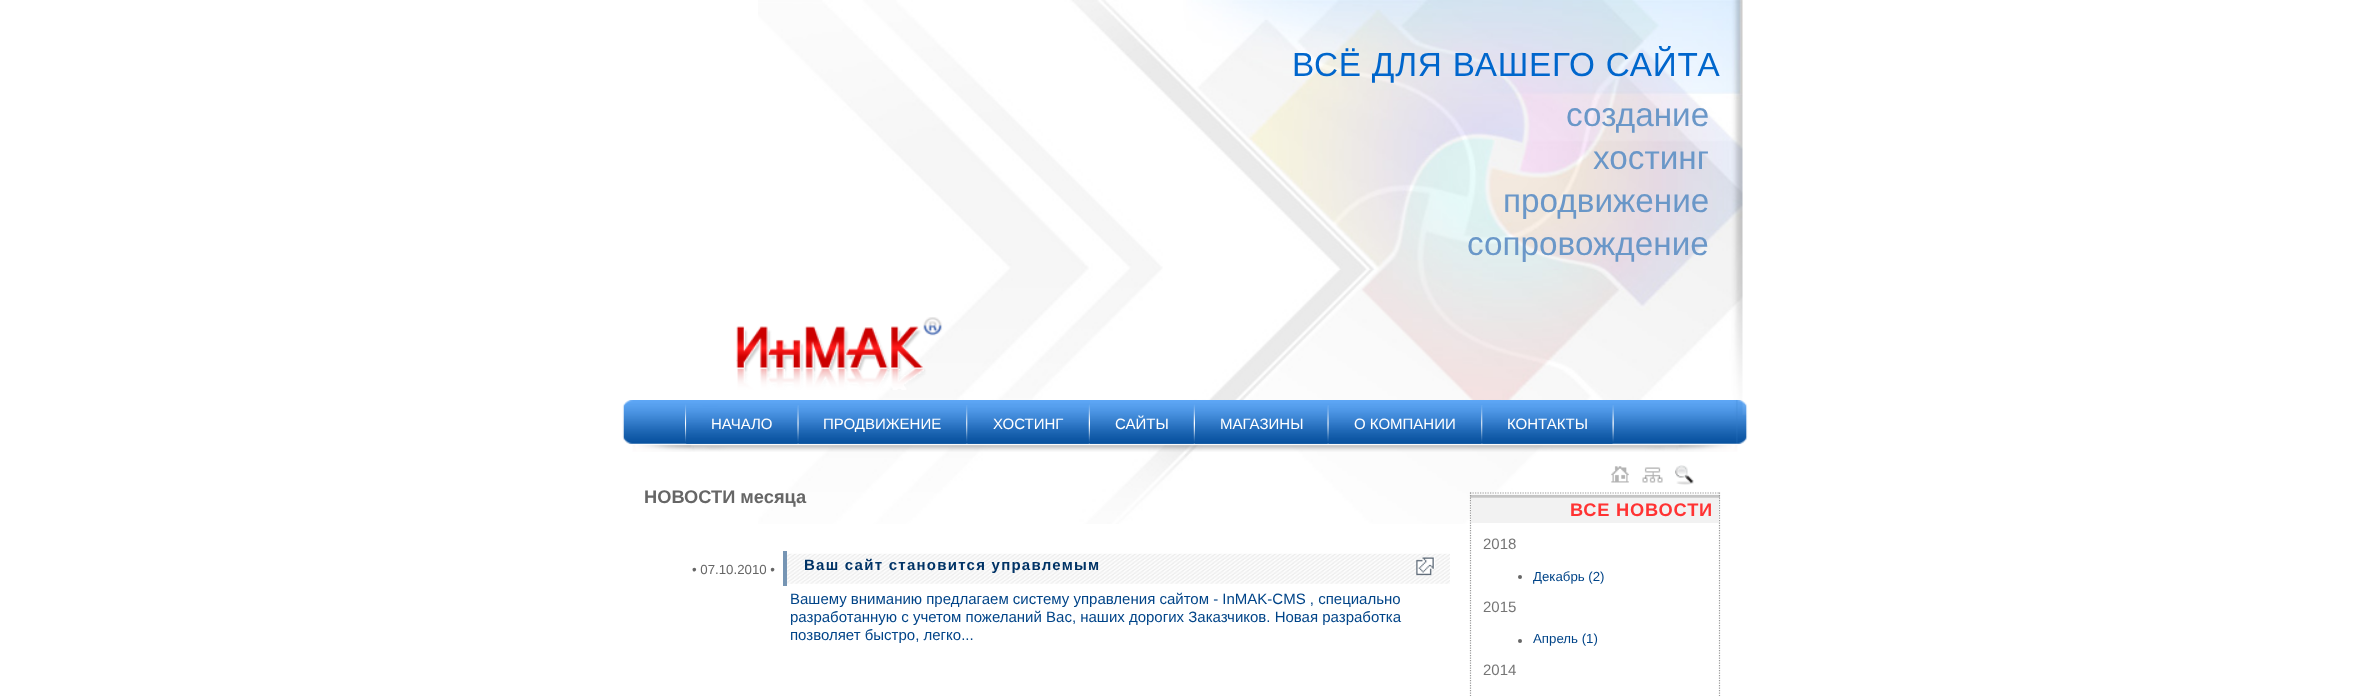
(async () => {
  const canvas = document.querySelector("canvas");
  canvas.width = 2368;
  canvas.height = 696;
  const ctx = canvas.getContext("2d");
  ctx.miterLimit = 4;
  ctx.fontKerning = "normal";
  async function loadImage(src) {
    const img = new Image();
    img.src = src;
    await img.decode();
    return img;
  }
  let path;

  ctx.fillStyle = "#ffffff";
  ctx.fillRect(0, 0, 2368, 696);
  ctx.drawImage(await loadImage("img/1.png"), 758, 0, 985, 524);
  ctx.drawImage(await loadImage("img/2.png"), 736, 317, 207, 73);
  ctx.drawImage(await loadImage("img/3.png"), 622, 400, 1126, 52);
  ctx.drawImage(await loadImage("img/4.png"), 685, 404, 2, 38);
  ctx.drawImage(await loadImage("img/5.png"), 686, 407, 112, 37);
  ctx.drawImage(await loadImage("img/6.png"), 797, 405, 2, 37);
  ctx.drawImage(await loadImage("img/7.png"), 798, 407, 169, 37);
  ctx.drawImage(await loadImage("img/8.png"), 966, 405, 2, 37);
  ctx.drawImage(await loadImage("img/9.png"), 967, 406, 122, 38);
  ctx.drawImage(await loadImage("img/10.png"), 1088, 404, 2, 38);
  ctx.drawImage(await loadImage("img/11.png"), 1090, 443, 104, 1);
  ctx.drawImage(await loadImage("img/12.png"), 1193, 404, 2, 38);
  ctx.drawImage(await loadImage("img/13.png"), 1195, 443, 133, 1);
  ctx.drawImage(await loadImage("img/14.png"), 1327, 405, 2, 37);
  ctx.drawImage(await loadImage("img/15.png"), 1328, 407, 154, 37);
  ctx.drawImage(await loadImage("img/8.png"), 1481, 405, 2, 37);
  ctx.drawImage(await loadImage("img/16.png"), 1482, 406, 131, 38);
  ctx.drawImage(await loadImage("img/17.png"), 1612, 405, 2, 37);
  ctx.drawImage(await loadImage("img/18.png"), 1611, 466, 18, 17);
  ctx.drawImage(await loadImage("img/19.png"), 1642, 467, 21, 16);
  ctx.drawImage(await loadImage("img/20.png"), 1675, 465, 19, 20);
  ctx.drawImage(await loadImage("img/21.png"), 787, 553, 663, 31);
  ctx.fillStyle = "#7695b4";
  ctx.fillRect(783, 551, 4, 35);
  ctx.drawImage(await loadImage("img/22.png"), 1416, 557, 19, 19);
  ctx.drawImage(await loadImage("img/23.png"), 1470, 494, 250, 8);
  path = new Path2D("M1470 493H1720");
  ctx.strokeStyle = "#999999";
  ctx.lineWidth = 1.2;
  ctx.setLineDash([1.25, 1.25]);
  ctx.stroke(path);
  path = new Path2D("M1719.5 492.5V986");
  ctx.stroke(path);
  path = new Path2D("M1470.5 492.5V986");
  ctx.stroke(path);
  ctx.fillStyle = "#f2f2f2";
  ctx.fillRect(1471, 498, 248, 25);
  ctx.fillStyle = "#666666";
  ctx.beginPath();
  ctx.arc(1520, 577, 2, 0, Math.PI * 2);
  ctx.fill();
  ctx.beginPath();
  ctx.arc(1520, 641, 2, 0, Math.PI * 2);
  ctx.fill();
  ctx.letterSpacing = "0.8px";
  ctx.font = "33.3px Liberation Sans";
  ctx.fillStyle = "#0066cc";
  ctx.fillText("ВСЁ ДЛЯ ВАШЕГО САЙТА", 1292, 76);
  ctx.letterSpacing = "0px";
  ctx.fillStyle = "#6a97c8";
  for (const [text, x, y] of [
    ["создание", 1566, 126],
    ["хостинг", 1593, 169],
    ["продвижение", 1503, 212],
    ["сопровождение", 1467, 255],
  ]) {
    ctx.fillText(text, x, y);
  }
  ctx.font = "15px Liberation Sans";
  ctx.fillStyle = "#ffffff";
  for (const [text, x, y] of [
    ["НАЧАЛО", 711, 429],
    ["ПРОДВИЖЕНИЕ", 823, 429],
    ["ХОСТИНГ", 993, 429],
    ["САЙТЫ", 1115, 429],
    ["МАГАЗИНЫ", 1220, 429],
    ["О КОМПАНИИ", 1354, 429],
    ["КОНТАКТЫ", 1507, 429],
  ]) {
    ctx.fillText(text, x, y);
  }
  ctx.font = "bold 18.25px Liberation Sans";
  ctx.fillStyle = "#666666";
  ctx.fillText("НОВОСТИ месяца", 644, 503);
  ctx.font = "13.25px Liberation Sans";
  ctx.fillText("• 07.10.2010 •", 692, 574);
  ctx.letterSpacing = "1.25px";
  ctx.font = "bold 15px Liberation Sans";
  ctx.fillStyle = "#003366";
  ctx.fillText("Ваш сайт становится управлемым", 804, 570);
  ctx.letterSpacing = "0px";
  ctx.font = "15px Liberation Sans";
  ctx.fillStyle = "#004488";
  for (const [text, x, y] of [
    ["Вашему вниманию предлагаем систему управления сайтом - InMAK-CMS , специально", 790, 604],
    ["разработанную с учетом пожеланий Вас, наших дорогих Заказчиков. Новая разработка", 790, 622],
    ["позволяет быстро, легко...", 790, 640],
  ]) {
    ctx.fillText(text, x, y);
  }
  ctx.letterSpacing = "0.8px";
  ctx.font = "bold 18.25px Liberation Sans";
  ctx.fillStyle = "#ff3333";
  ctx.fillText("ВСЕ НОВОСТИ", 1570, 516);
  ctx.letterSpacing = "0px";
  ctx.font = "15px Liberation Sans";
  ctx.fillStyle = "#757575";
  ctx.fillText("2018", 1483, 549);
  ctx.font = "13.25px Liberation Sans";
  ctx.fillStyle = "#004488";
  ctx.fillText("Декабрь (2)", 1533, 581);
  ctx.font = "15px Liberation Sans";
  ctx.fillStyle = "#757575";
  ctx.fillText("2015", 1483, 612);
  ctx.font = "13.25px Liberation Sans";
  ctx.fillStyle = "#004488";
  ctx.fillText("Апрель (1)", 1533, 643);
  ctx.font = "15px Liberation Sans";
  ctx.fillStyle = "#757575";
  ctx.fillText("2014", 1483, 675);
})();
